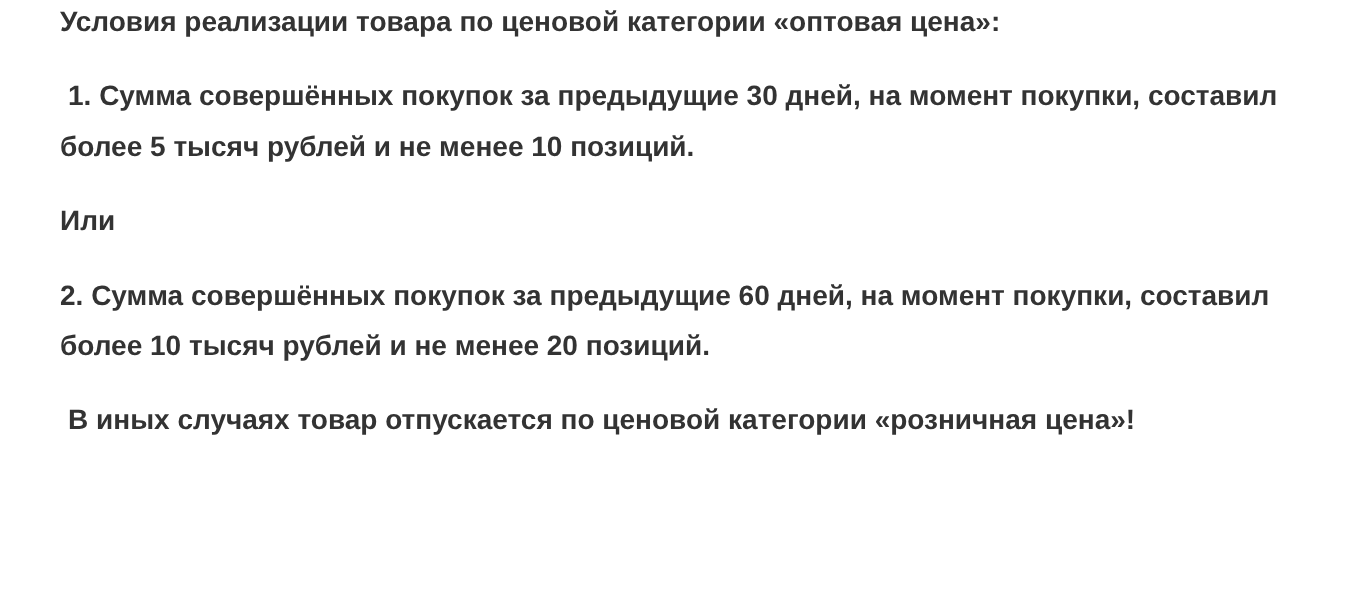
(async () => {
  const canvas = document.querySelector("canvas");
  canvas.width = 1356;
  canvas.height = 614;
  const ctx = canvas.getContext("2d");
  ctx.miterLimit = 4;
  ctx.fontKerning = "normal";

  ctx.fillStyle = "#ffffff";
  ctx.fillRect(0, 0, 1356, 614);
  ctx.font = "bold 28px Liberation Sans";
  ctx.fillStyle = "#333333";
  for (const [text, x, y] of [
    ["Условия реализации товара по ценовой категории «оптовая цена»:", 60, 31],
    ["1. Сумма совершённых покупок за предыдущие 30 дней, на момент покупки, составил", 68, 105],
    ["более 5 тысяч рублей и не менее 10 позиций.", 60, 156],
    ["Или", 60, 230],
    ["2. Сумма совершённых покупок за предыдущие 60 дней, на момент покупки, составил", 60, 305],
    ["более 10 тысяч рублей и не менее 20 позиций.", 60, 355],
    ["В иных случаях товар отпускается по ценовой категории «розничная цена»!", 68, 429],
  ]) {
    ctx.fillText(text, x, y);
  }
})();
